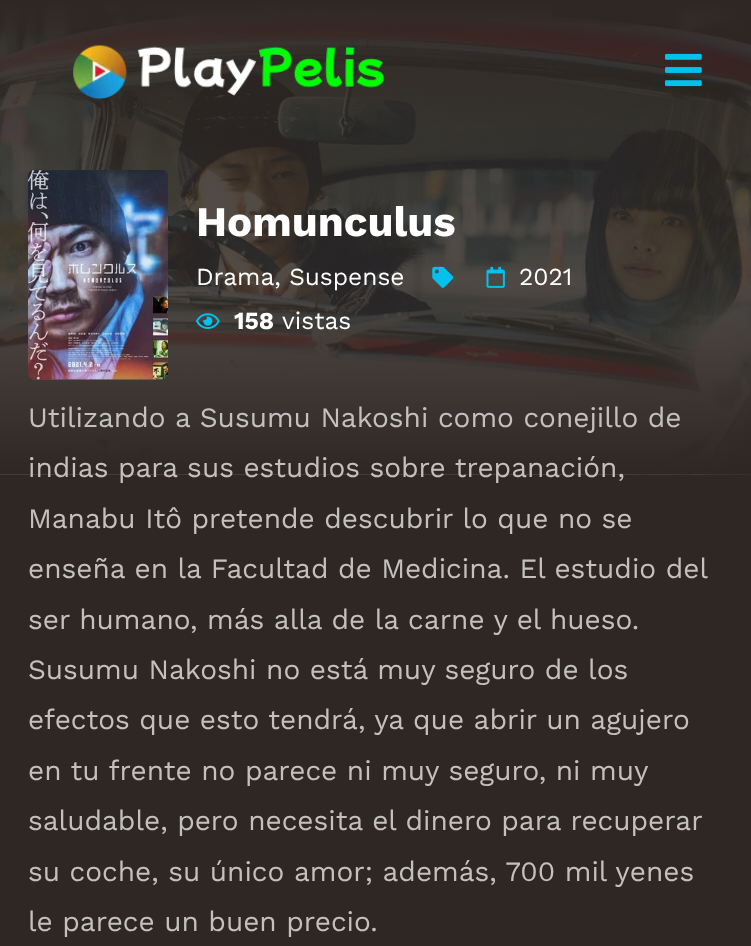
(async () => {
  const canvas = document.querySelector("canvas");
  canvas.width = 751;
  canvas.height = 946;
  const ctx = canvas.getContext("2d");
  ctx.miterLimit = 4;
  ctx.fontKerning = "normal";
  async function loadImage(src) {
    const img = new Image();
    img.src = src;
    await img.decode();
    return img;
  }
  let gradient;

  ctx.fillStyle = "#2f2723";
  ctx.fillRect(0, 0, 751, 946);
  ctx.drawImage(await loadImage("img/1.png"), 0, 2, 751, 473);
  gradient = ctx.createLinearGradient(376, 0, 376, 280);
  gradient.addColorStop(0, "#2f2723");
  gradient.addColorStop(1, "rgba(47, 39, 35, 0)");
  ctx.fillStyle = gradient;
  ctx.fillRect(0, 2, 751, 270);
  gradient = ctx.createLinearGradient(376, 0, 376, 474);
  gradient.addColorStop(0, "rgba(47, 39, 35, 0)");
  gradient.addColorStop(1, "#2f2723");
  ctx.fillStyle = gradient;
  ctx.fillRect(0, 59, 751, 415);
  ctx.drawImage(await loadImage("img/2.png"), 73, 45, 311, 55);
  ctx.drawImage(await loadImage("img/3.png"), 665, 53, 37, 34);
  ctx.drawImage(await loadImage("img/4.png"), 28, 170, 140, 210);
  ctx.drawImage(await loadImage("img/5.png"), 432, 266, 22, 22);
  ctx.drawImage(await loadImage("img/6.png"), 486, 266, 19, 22);
  ctx.drawImage(await loadImage("img/7.png"), 196, 313, 24, 16);
  ctx.font = "bold 42px Work Sans";
  ctx.fillStyle = "#ffffff";
  ctx.fillText("Homunculus", 196, 236);
  ctx.font = "24.5px Work Sans";
  ctx.fillText("Drama, Suspense", 196, 285);
  ctx.fillText("2021", 519, 285);
  ctx.font = "bold 24.5px Work Sans";
  ctx.fillText("158", 234, 329);
  ctx.font = "24.5px Work Sans";
  ctx.fillText("vistas", 282, 329);
  ctx.font = "28px Work Sans";
  ctx.fillStyle = "#c3c1c0";
  for (const [text, x, y] of [
    ["Utilizando a Susumu Nakoshi como conejillo de", 28, 427],
    ["indias para sus estudios sobre trepanación,", 28, 477],
    ["Manabu Itô pretende descubrir lo que no se", 28, 528],
    ["enseña en la Facultad de Medicina. El estudio del", 28, 578],
    ["ser humano, más alla de la carne y el hueso.", 28, 629],
    ["Susumu Nakoshi no está muy seguro de los", 28, 679],
    ["efectos que esto tendrá, ya que abrir un agujero", 28, 729],
    ["en tu frente no parece ni muy seguro, ni muy", 28, 780],
    ["saludable, pero necesita el dinero para recuperar", 28, 830],
    ["su coche, su único amor; además, 700 mil yenes", 28, 881],
    ["le parece un buen precio.", 28, 931],
  ]) {
    ctx.fillText(text, x, y);
  }
})();
